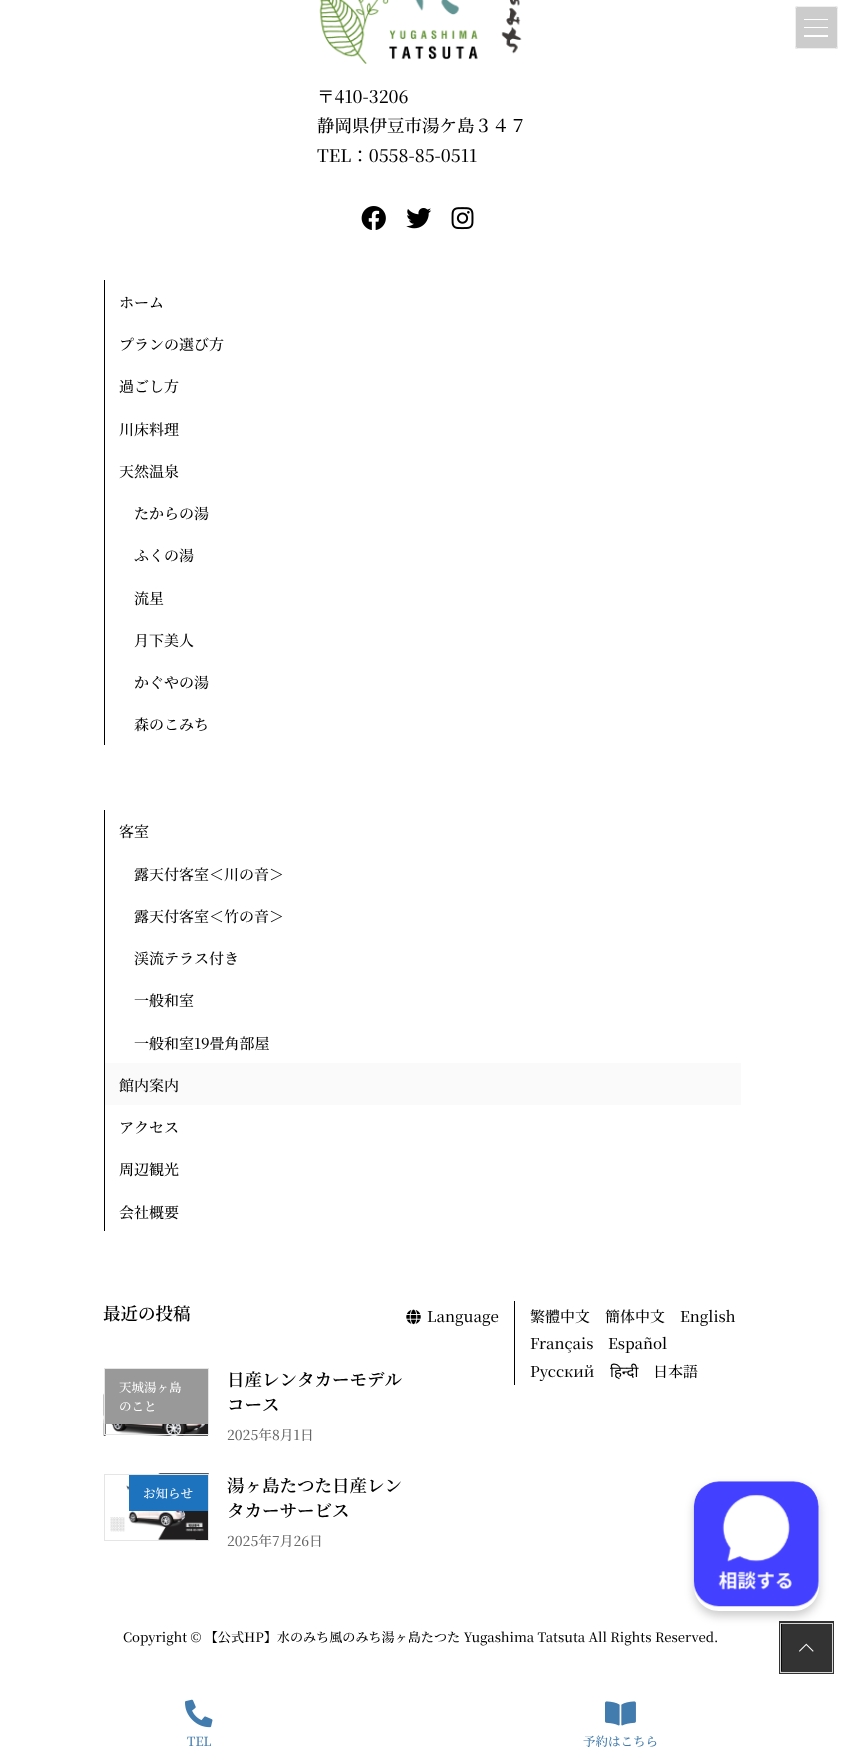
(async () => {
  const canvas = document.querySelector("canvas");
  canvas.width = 843;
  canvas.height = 1761;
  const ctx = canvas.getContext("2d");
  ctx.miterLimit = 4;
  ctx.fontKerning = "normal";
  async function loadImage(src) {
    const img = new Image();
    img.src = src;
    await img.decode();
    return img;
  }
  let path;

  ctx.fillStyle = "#ffffff";
  ctx.fillRect(0, 0, 843, 1761);
  ctx.fillStyle = "#cccccc";
  ctx.beginPath();
  ctx.roundRect(795, 6, 43, 43, 2.5);
  ctx.fill();
  for (const [x, y, w, h, color] of [
    [804, 19, 24, 1, "#ffffff"],
    [804, 27, 24, 1, "#ffffff"],
    [804, 35, 24, 2, "#ffffff"],
  ]) {
    ctx.fillStyle = color;
    ctx.fillRect(x, y, w, h);
  }
  ctx.beginPath();
  ctx.roundRect(795.5, 6.5, 42, 42, 2);
  ctx.strokeStyle = "rgba(255, 255, 255, 0.7)";
  ctx.stroke();
  ctx.drawImage(await loadImage("img/1.png"), 319, 0, 203, 64);
  ctx.drawImage(await loadImage("img/2.png"), 361, 206, 25, 24);
  ctx.drawImage(await loadImage("img/3.png"), 406, 208, 26, 21);
  ctx.drawImage(await loadImage("img/4.png"), 451, 207, 23, 23);
  for (const [x, y, w, h, color] of [
    [104, 280, 1, 465, "#000000"],
    [104, 810, 1, 421, "#000000"],
    [105, 1063, 636, 42, "#fafafa"],
  ]) {
    ctx.fillStyle = color;
    ctx.fillRect(x, y, w, h);
  }
  ctx.drawImage(await loadImage("img/5.png"), 103, 1368, 105, 68);
  ctx.strokeStyle = "#e5e5e5";
  ctx.strokeRect(104.5, 1368.5, 104, 66);
  ctx.fillStyle = "#999999";
  ctx.fillRect(105, 1369, 103, 55);
  ctx.drawImage(await loadImage("img/6.png"), 110, 1473, 99, 67);
  ctx.strokeRect(104.5, 1474.5, 104, 66);
  ctx.fillStyle = "#1e73be";
  ctx.fillRect(129, 1475, 79, 36);
  ctx.drawImage(await loadImage("img/7.png"), 406, 1309, 15, 16);
  ctx.fillStyle = "#000000";
  ctx.fillRect(514, 1301, 1, 84);
  ctx.strokeStyle = "#333333";
  ctx.lineWidth = 3;
  ctx.strokeRect(780.5, 1622.5, 52, 50);
  ctx.strokeStyle = "#d6d6d6";
  ctx.lineWidth = 1;
  ctx.strokeRect(780.5, 1623.5, 52, 49);
  ctx.fillStyle = "rgba(0, 0, 0, 0.8)";
  ctx.fillRect(781, 1624, 50, 47);
  ctx.save();
  path = new Path2D("M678 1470H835V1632H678ZM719 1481H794C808 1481 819 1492 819 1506V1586C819 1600 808 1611 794 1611H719C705 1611 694 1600 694 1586V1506C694 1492 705 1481 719 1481Z");
  ctx.clip(path, "evenodd");
  ctx.fillStyle = "rgba(0, 0, 0, 0.2)";
  ctx.filter = "blur(5px)";
  ctx.beginPath();
  ctx.roundRect(694, 1486, 125, 130, 25);
  ctx.fill();
  ctx.filter = "none";
  ctx.restore();
  ctx.drawImage(await loadImage("img/8.png"), 693, 1481, 126, 126);
  ctx.drawImage(await loadImage("img/9.png"), 799, 1643, 15, 9);
  ctx.drawImage(await loadImage("img/10.png"), 185, 1699, 28, 29);
  ctx.drawImage(await loadImage("img/11.png"), 605, 1701, 31, 25);
  ctx.font = "500 17.5px Noto Serif JP";
  ctx.fillStyle = "#000000";
  for (const [text, x, y] of [
    ["〒410-3206", 317, 103],
    ["静岡県伊豆市湯ケ島３４７", 317, 132],
    ["TEL：0558-85-0511", 317, 162],
  ]) {
    ctx.fillText(text, x, y);
  }
  ctx.font = "500 15px Noto Serif JP";
  for (const [text, x, y] of [
    ["ホーム", 119, 308],
    ["プランの選び方", 119, 350],
    ["過ごし方", 119, 392],
    ["川床料理", 119, 435],
    ["天然温泉", 119, 477],
    ["たからの湯", 134, 519],
    ["ふくの湯", 134, 561],
    ["流星", 134, 604],
    ["月下美人", 134, 646],
    ["かぐやの湯", 134, 688],
    ["森のこみち", 134, 730],
    ["客室", 119, 837],
    ["露天付客室＜川の音＞", 134, 880],
    ["露天付客室＜竹の音＞", 134, 922],
    ["渓流テラス付き", 134, 964],
    ["一般和室", 134, 1006],
    ["一般和室19畳角部屋", 134, 1049],
    ["館内案内", 119, 1091],
    ["アクセス", 119, 1133],
    ["周辺観光", 119, 1175],
    ["会社概要", 119, 1218],
  ]) {
    ctx.fillText(text, x, y);
  }
  ctx.font = "600 17.5px Noto Serif JP";
  ctx.fillText("最近の投稿", 103, 1320);
  ctx.font = "500 12.5px Noto Serif JP";
  ctx.fillStyle = "#ffffff";
  ctx.fillText("天城湯ヶ島", 119, 1392);
  ctx.fillText("のこと", 119, 1411);
  ctx.font = "600 17.5px Noto Serif JP";
  ctx.fillStyle = "#000000";
  ctx.fillText("日産レンタカーモデル", 227, 1386);
  ctx.fillText("コース", 227, 1411);
  ctx.font = "500 13.75px Noto Serif JP";
  ctx.fillStyle = "#666666";
  ctx.fillText("2025年8月1日", 227, 1440);
  ctx.font = "500 12.5px Noto Serif JP";
  ctx.fillStyle = "#ffffff";
  ctx.fillText("お知らせ", 143, 1498);
  ctx.font = "600 17.5px Noto Serif JP";
  ctx.fillStyle = "#000000";
  ctx.fillText("湯ヶ島たつた日産レン", 227, 1492);
  ctx.fillText("タカーサービス", 227, 1517);
  ctx.font = "500 13.75px Noto Serif JP";
  ctx.fillStyle = "#666666";
  ctx.fillText("2025年7月26日", 227, 1546);
  ctx.font = "500 15px Noto Serif JP";
  ctx.fillStyle = "#000000";
  for (const [text, x, y] of [
    ["Language", 427, 1322],
    ["繁體中文", 530, 1322],
    ["簡体中文", 605, 1322],
    ["English", 680, 1322],
    ["Français", 530, 1349],
    ["Español", 608, 1349],
    ["Pусский", 530, 1377],
  ]) {
    ctx.fillText(text, x, y);
  }
  ctx.font = "15px Noto Sans";
  ctx.fillText("हिन्दी", 610, 1377);
  ctx.font = "500 15px Noto Serif JP";
  ctx.fillText("日本語", 653, 1377);
  ctx.font = "500 13.1px Noto Serif JP";
  ctx.fillText("Copyright © 【公式HP】水のみち風のみち湯ヶ島たつた Yugashima Tatsuta All Rights Reserved.", 123, 1642);
  ctx.font = "500 12.5px Noto Serif JP";
  ctx.fillStyle = "#437cad";
  ctx.fillText("TEL", 187, 1746);
  ctx.fillText("予約はこちら", 583, 1746);
})();
